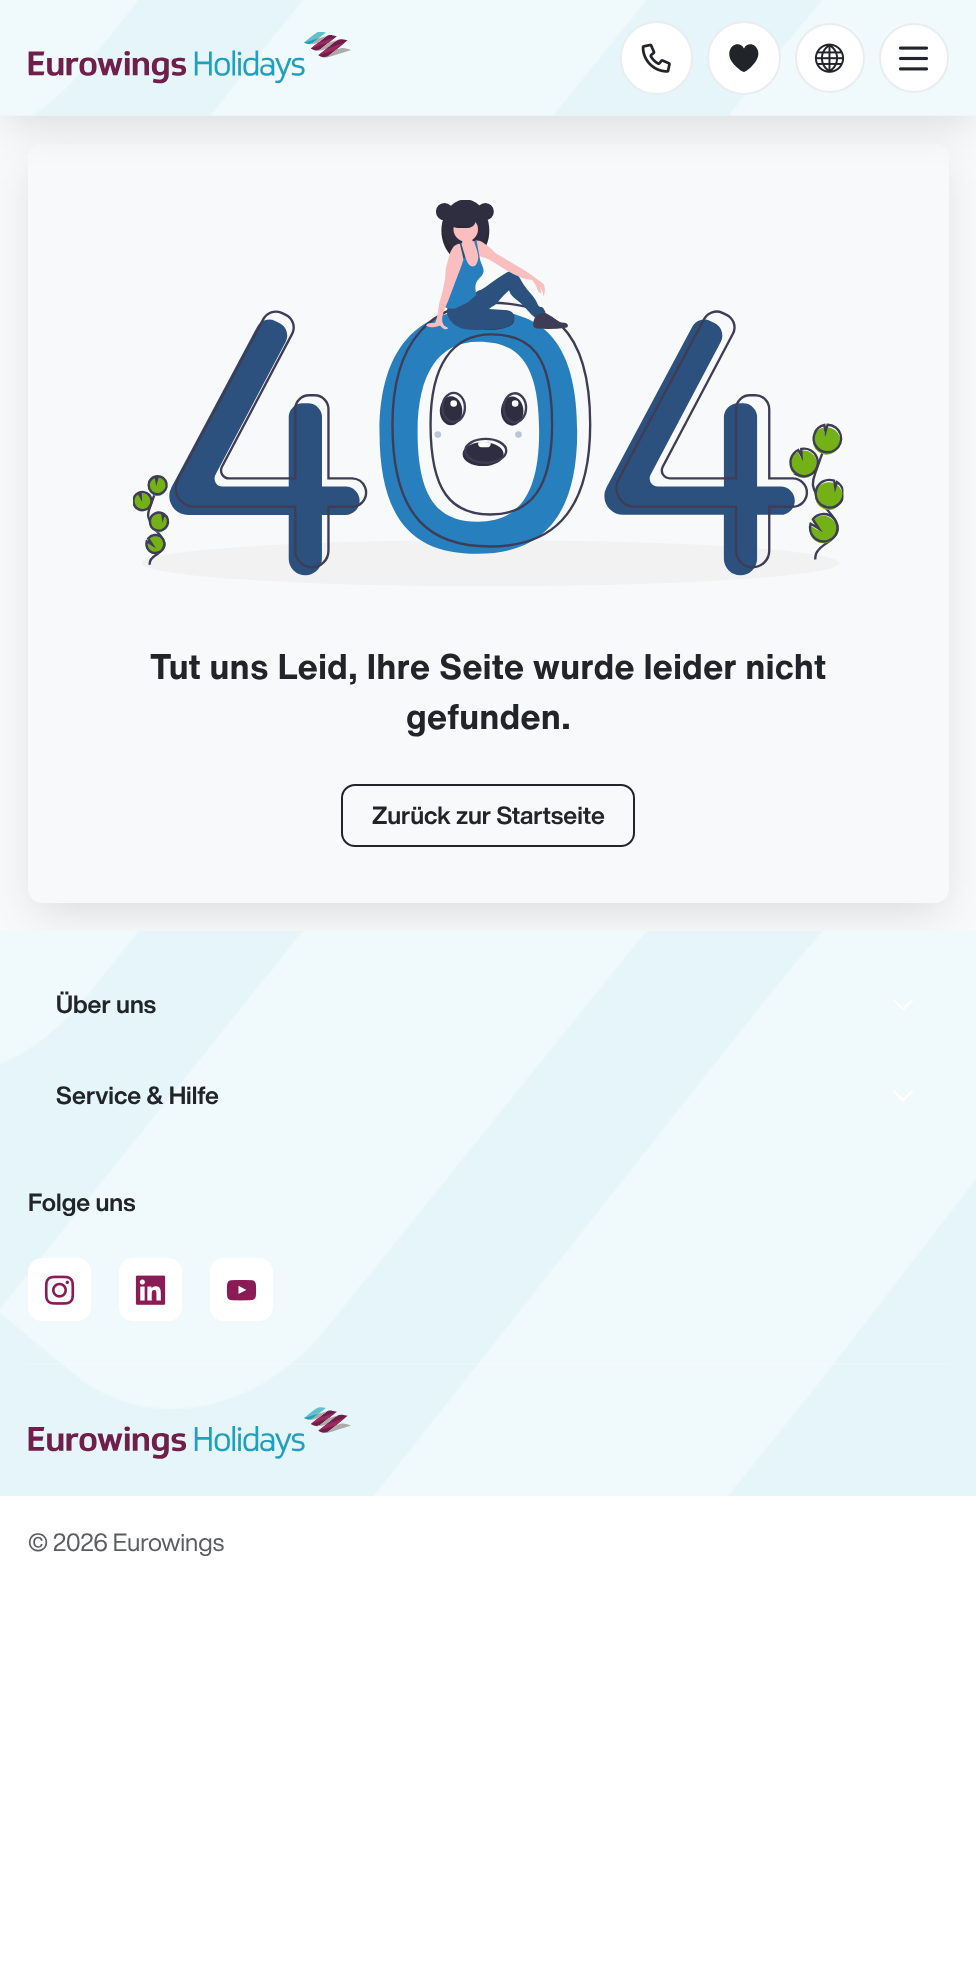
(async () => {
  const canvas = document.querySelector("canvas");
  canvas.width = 976;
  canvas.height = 1988;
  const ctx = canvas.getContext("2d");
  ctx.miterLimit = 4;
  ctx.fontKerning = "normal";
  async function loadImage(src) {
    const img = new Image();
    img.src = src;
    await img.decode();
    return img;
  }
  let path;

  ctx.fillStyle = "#f8f9fa";
  ctx.fillRect(0, 0, 976, 1988);
  ctx.fillStyle = "rgba(0, 0, 0, 0.12)";
  ctx.filter = "blur(21px)";
  ctx.beginPath();
  ctx.rect(7, 21, 963, 102);
  ctx.fill();
  ctx.filter = "none";
  ctx.save();
  path = new Path2D("M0 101H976V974H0ZM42 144H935C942.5 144 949 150.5 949 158V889C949 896.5 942.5 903 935 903H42C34.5 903 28 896.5 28 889V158C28 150.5 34.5 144 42 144Z");
  ctx.clip(path, "evenodd");
  ctx.filter = "blur(21px)";
  ctx.beginPath();
  ctx.roundRect(35, 165, 907, 745, 7);
  ctx.fill();
  ctx.filter = "none";
  ctx.restore();
  ctx.fillStyle = "#e6f5f9";
  ctx.fillRect(0, 0, 976, 116);
  ctx.drawImage(await loadImage("img/1.png"), 0, 0, 976, 116);
  ctx.drawImage(await loadImage("img/2.png"), 28, 32, 323, 52);
  ctx.fillStyle = "#ffffff";
  ctx.beginPath();
  ctx.roundRect(621, 22, 71, 72, 35.5);
  ctx.fill();
  ctx.strokeStyle = "#eaedf0";
  ctx.lineWidth = 2;
  ctx.stroke();
  ctx.drawImage(await loadImage("img/3.png"), 641, 43, 30, 30);
  ctx.beginPath();
  ctx.arc(744, 58, 36, 0, Math.PI * 2);
  ctx.fill();
  ctx.stroke();
  ctx.fillStyle = "#212529";
  path = new Path2D("M744 72C745.5 72 750 68 751.5 66.5C768.5 50.5 749.5 37 744 48.5C738 37 719 51 736.5 67C738 68 742 72 744 72Z");
  ctx.fill(path);
  ctx.fillStyle = "#ffffff";
  ctx.beginPath();
  ctx.arc(830, 58, 34, 0, Math.PI * 2);
  ctx.fill();
  ctx.stroke();
  ctx.drawImage(await loadImage("img/4.png"), 814, 43, 31, 30);
  ctx.beginPath();
  ctx.arc(914, 58, 34, 0, Math.PI * 2);
  ctx.fill();
  ctx.stroke();
  ctx.drawImage(await loadImage("img/5.png"), 898, 46, 31, 25);
  ctx.drawImage(await loadImage("img/6.png"), 133, 200, 711, 386);
  ctx.beginPath();
  ctx.roundRect(342, 785, 292, 61, 13);
  ctx.strokeStyle = "#212529";
  ctx.stroke();
  ctx.fillStyle = "#e6f5f9";
  ctx.fillRect(0, 931, 976, 565);
  ctx.drawImage(await loadImage("img/7.png"), 0, 931, 976, 565);
  ctx.drawImage(await loadImage("img/8.png"), 893, 999, 20, 12);
  ctx.drawImage(await loadImage("img/8.png"), 893, 1090, 20, 12);
  ctx.fillStyle = "rgba(255, 255, 255, 0.15)";
  ctx.fillRect(28, 1363, 921, 2);
  ctx.fillStyle = "#ffffff";
  ctx.beginPath();
  ctx.roundRect(28, 1258, 63, 63, 14);
  ctx.fill();
  ctx.drawImage(await loadImage("img/9.png"), 44, 1275, 31, 30);
  ctx.beginPath();
  ctx.roundRect(119, 1258, 63, 63, 14);
  ctx.fill();
  ctx.drawImage(await loadImage("img/10.png"), 135, 1275, 31, 30);
  ctx.beginPath();
  ctx.roundRect(210, 1258, 63, 63, 14);
  ctx.fill();
  ctx.drawImage(await loadImage("img/11.png"), 226, 1280, 31, 21);
  ctx.drawImage(await loadImage("img/12.png"), 28, 1407, 323, 52);
  ctx.fillRect(0, 1496, 976, 492);
  ctx.font = "bold 35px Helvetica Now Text";
  ctx.fillStyle = "#212529";
  ctx.fillText("Tut uns Leid, Ihre Seite wurde leider nicht", 150, 679);
  ctx.fillText("gefunden.", 406, 729);
  ctx.font = "bold 24.5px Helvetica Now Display";
  for (const [text, x, y] of [
    ["Zurück zur Startseite", 372, 824],
    ["Über uns", 56, 1013],
    ["Service & Hilfe", 56, 1104],
    ["Folge uns", 28, 1211],
  ]) {
    ctx.fillText(text, x, y);
  }
  ctx.font = "24.5px Helvetica Now Display";
  ctx.fillStyle = "#5b5d63";
  ctx.fillText("© 2026 Eurowings", 28, 1551);
})();
